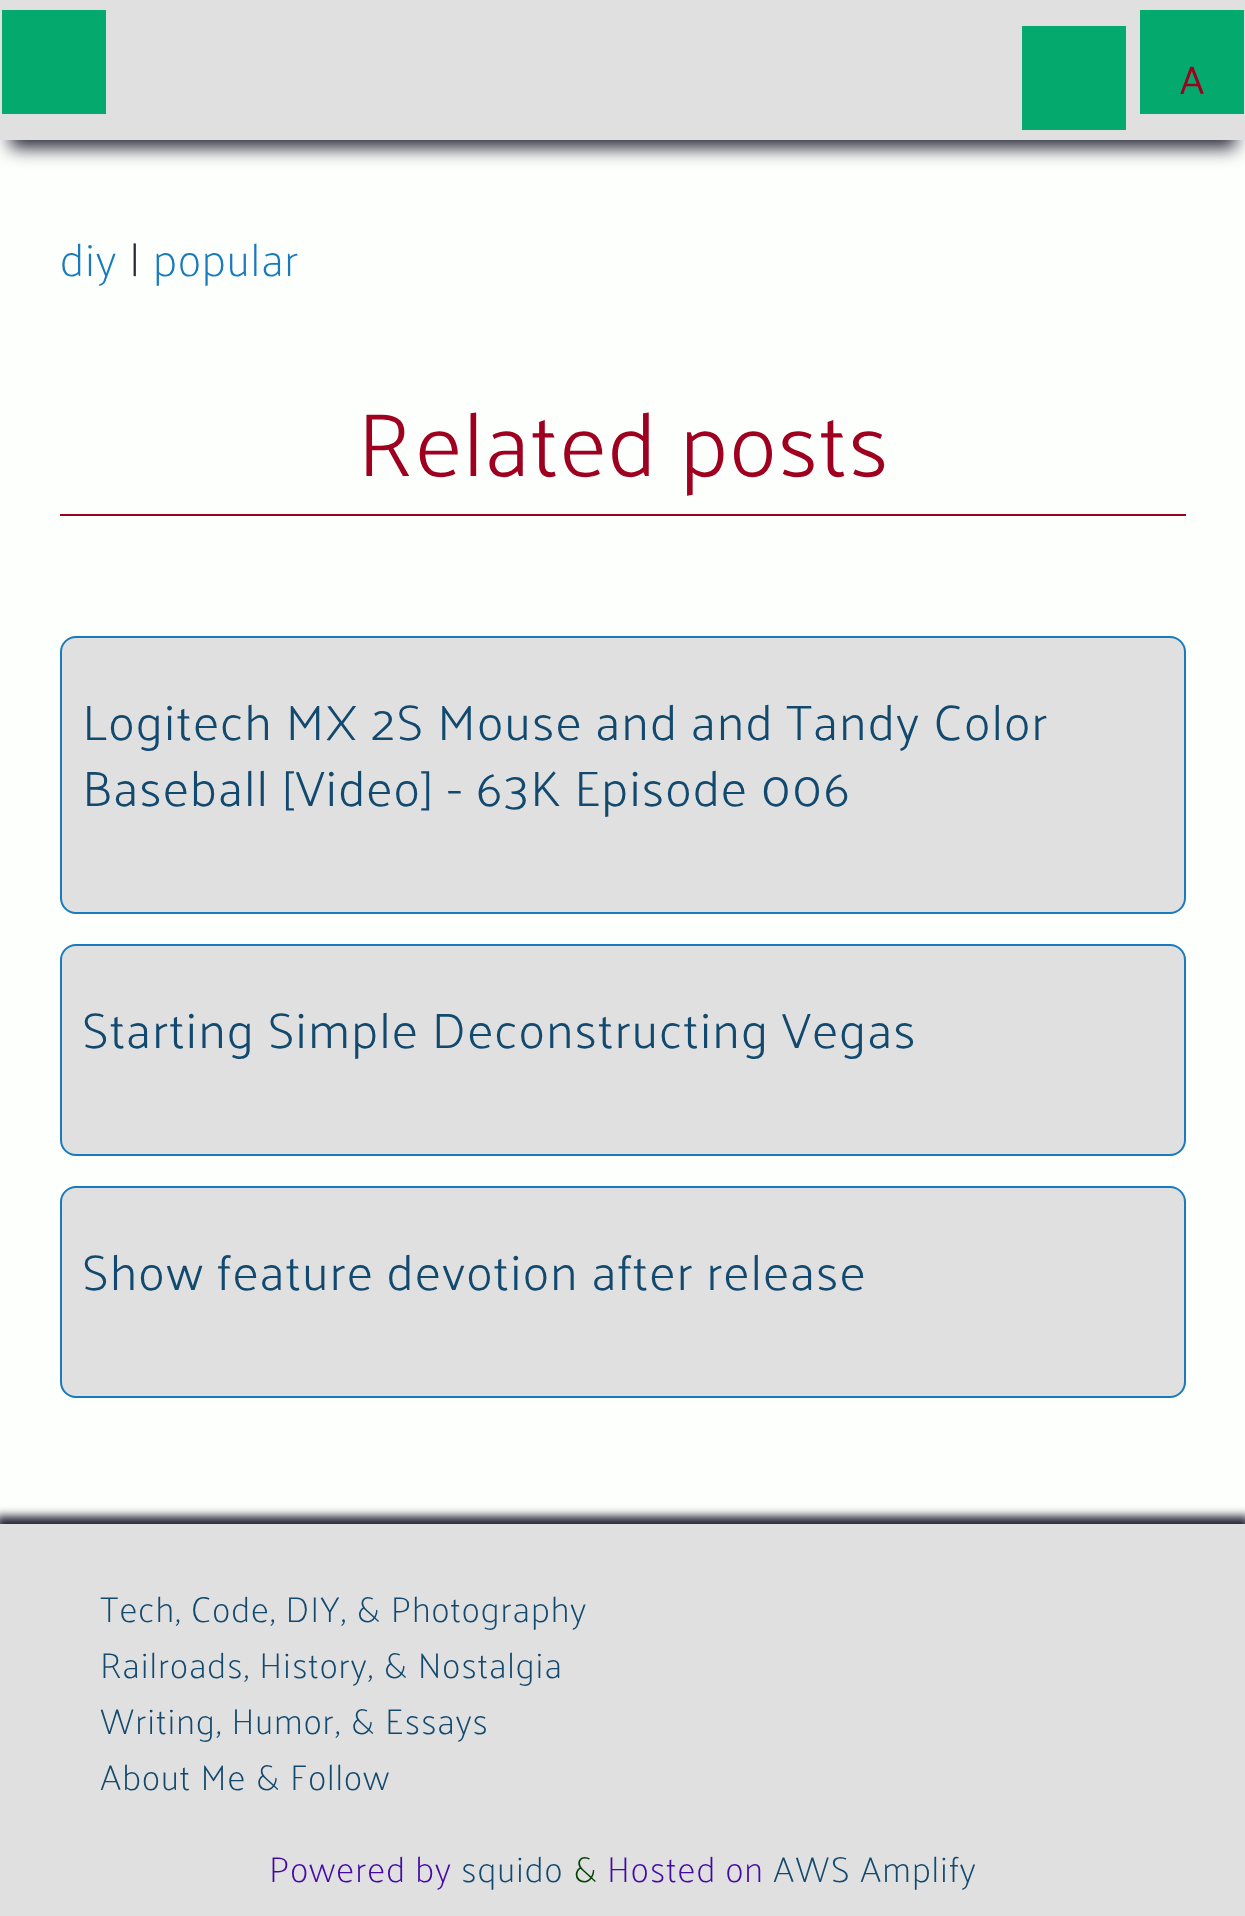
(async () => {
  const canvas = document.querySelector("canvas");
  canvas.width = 1245;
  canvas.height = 1916;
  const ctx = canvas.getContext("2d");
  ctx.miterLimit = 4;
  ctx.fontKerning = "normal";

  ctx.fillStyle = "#fdfffc";
  ctx.fillRect(0, 0, 1245, 1916);
  ctx.fillStyle = "#272838";
  ctx.filter = "blur(9px)";
  ctx.beginPath();
  ctx.rect(10, 28, 1226, 120);
  ctx.fill();
  ctx.filter = "none";
  for (const [x, y, w, h, color] of [
    [0, 0, 1245, 140, "#e0e0e0"],
    [2, 10, 104, 104, "#04aa6d"],
    [1022, 26, 104, 104, "#04aa6d"],
    [1140, 10, 104, 104, "#04aa6d"],
    [60, 514, 1126, 2, "#9f0020"],
  ]) {
    ctx.fillStyle = color;
    ctx.fillRect(x, y, w, h);
  }
  ctx.fillStyle = "#e0e0e0";
  ctx.beginPath();
  ctx.roundRect(61, 637, 1124, 276, 15);
  ctx.fill();
  ctx.strokeStyle = "#197bbd";
  ctx.lineWidth = 2;
  ctx.stroke();
  ctx.beginPath();
  ctx.roundRect(61, 945, 1124, 210, 15);
  ctx.fill();
  ctx.stroke();
  ctx.beginPath();
  ctx.roundRect(61, 1187, 1124, 210, 15);
  ctx.fill();
  ctx.stroke();
  ctx.fillStyle = "#272838";
  ctx.filter = "blur(5px)";
  ctx.beginPath();
  ctx.rect(-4, 1516, 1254, 400);
  ctx.fill();
  ctx.filter = "none";
  ctx.fillStyle = "#e0e0e0";
  ctx.fillRect(0, 1524, 1245, 392);
  ctx.font = "40px Palanquin";
  ctx.fillStyle = "#9f0020";
  ctx.fillText("A", 1180, 94);
  ctx.letterSpacing = "1px";
  ctx.font = "200 46px Palanquin";
  ctx.fillStyle = "#197bbd";
  ctx.fillText("diy", 60, 276);
  ctx.fillStyle = "#272838";
  ctx.fillText("|", 129, 276);
  ctx.fillStyle = "#197bbd";
  ctx.fillText("popular", 153, 276);
  ctx.font = "300 90px Palanquin";
  ctx.fillStyle = "#9f0020";
  ctx.fillText("Related posts", 357, 476);
  ctx.font = "300 50px Palanquin";
  ctx.fillStyle = "#12496e";
  for (const [text, x, y] of [
    ["Logitech MX 2S Mouse and and Tandy Color", 82, 740],
    ["Baseball [Video] - 63K Episode 006", 82, 806],
    ["Starting Simple Deconstructing Vegas", 82, 1048],
    ["Show feature devotion after release", 82, 1290],
  ]) {
    ctx.fillText(text, x, y);
  }
  ctx.font = "200 36px Palanquin";
  for (const [text, x, y] of [
    ["Tech, Code, DIY, & Photography", 100, 1622],
    ["Railroads, History, & Nostalgia", 100, 1678],
    ["Writing, Humor, & Essays", 100, 1734],
    ["About Me & Follow", 100, 1790],
  ]) {
    ctx.fillText(text, x, y);
  }
  ctx.fillStyle = "#4409a5";
  ctx.fillText("Powered by", 269, 1882);
  ctx.fillStyle = "#12496e";
  ctx.fillText("squido", 461, 1882);
  ctx.fillStyle = "#004200";
  ctx.fillText("&", 573, 1882);
  ctx.fillStyle = "#4409a5";
  ctx.fillText("Hosted on", 607, 1882);
  ctx.fillStyle = "#12496e";
  ctx.fillText("AWS Amplify", 773, 1882);
})();
